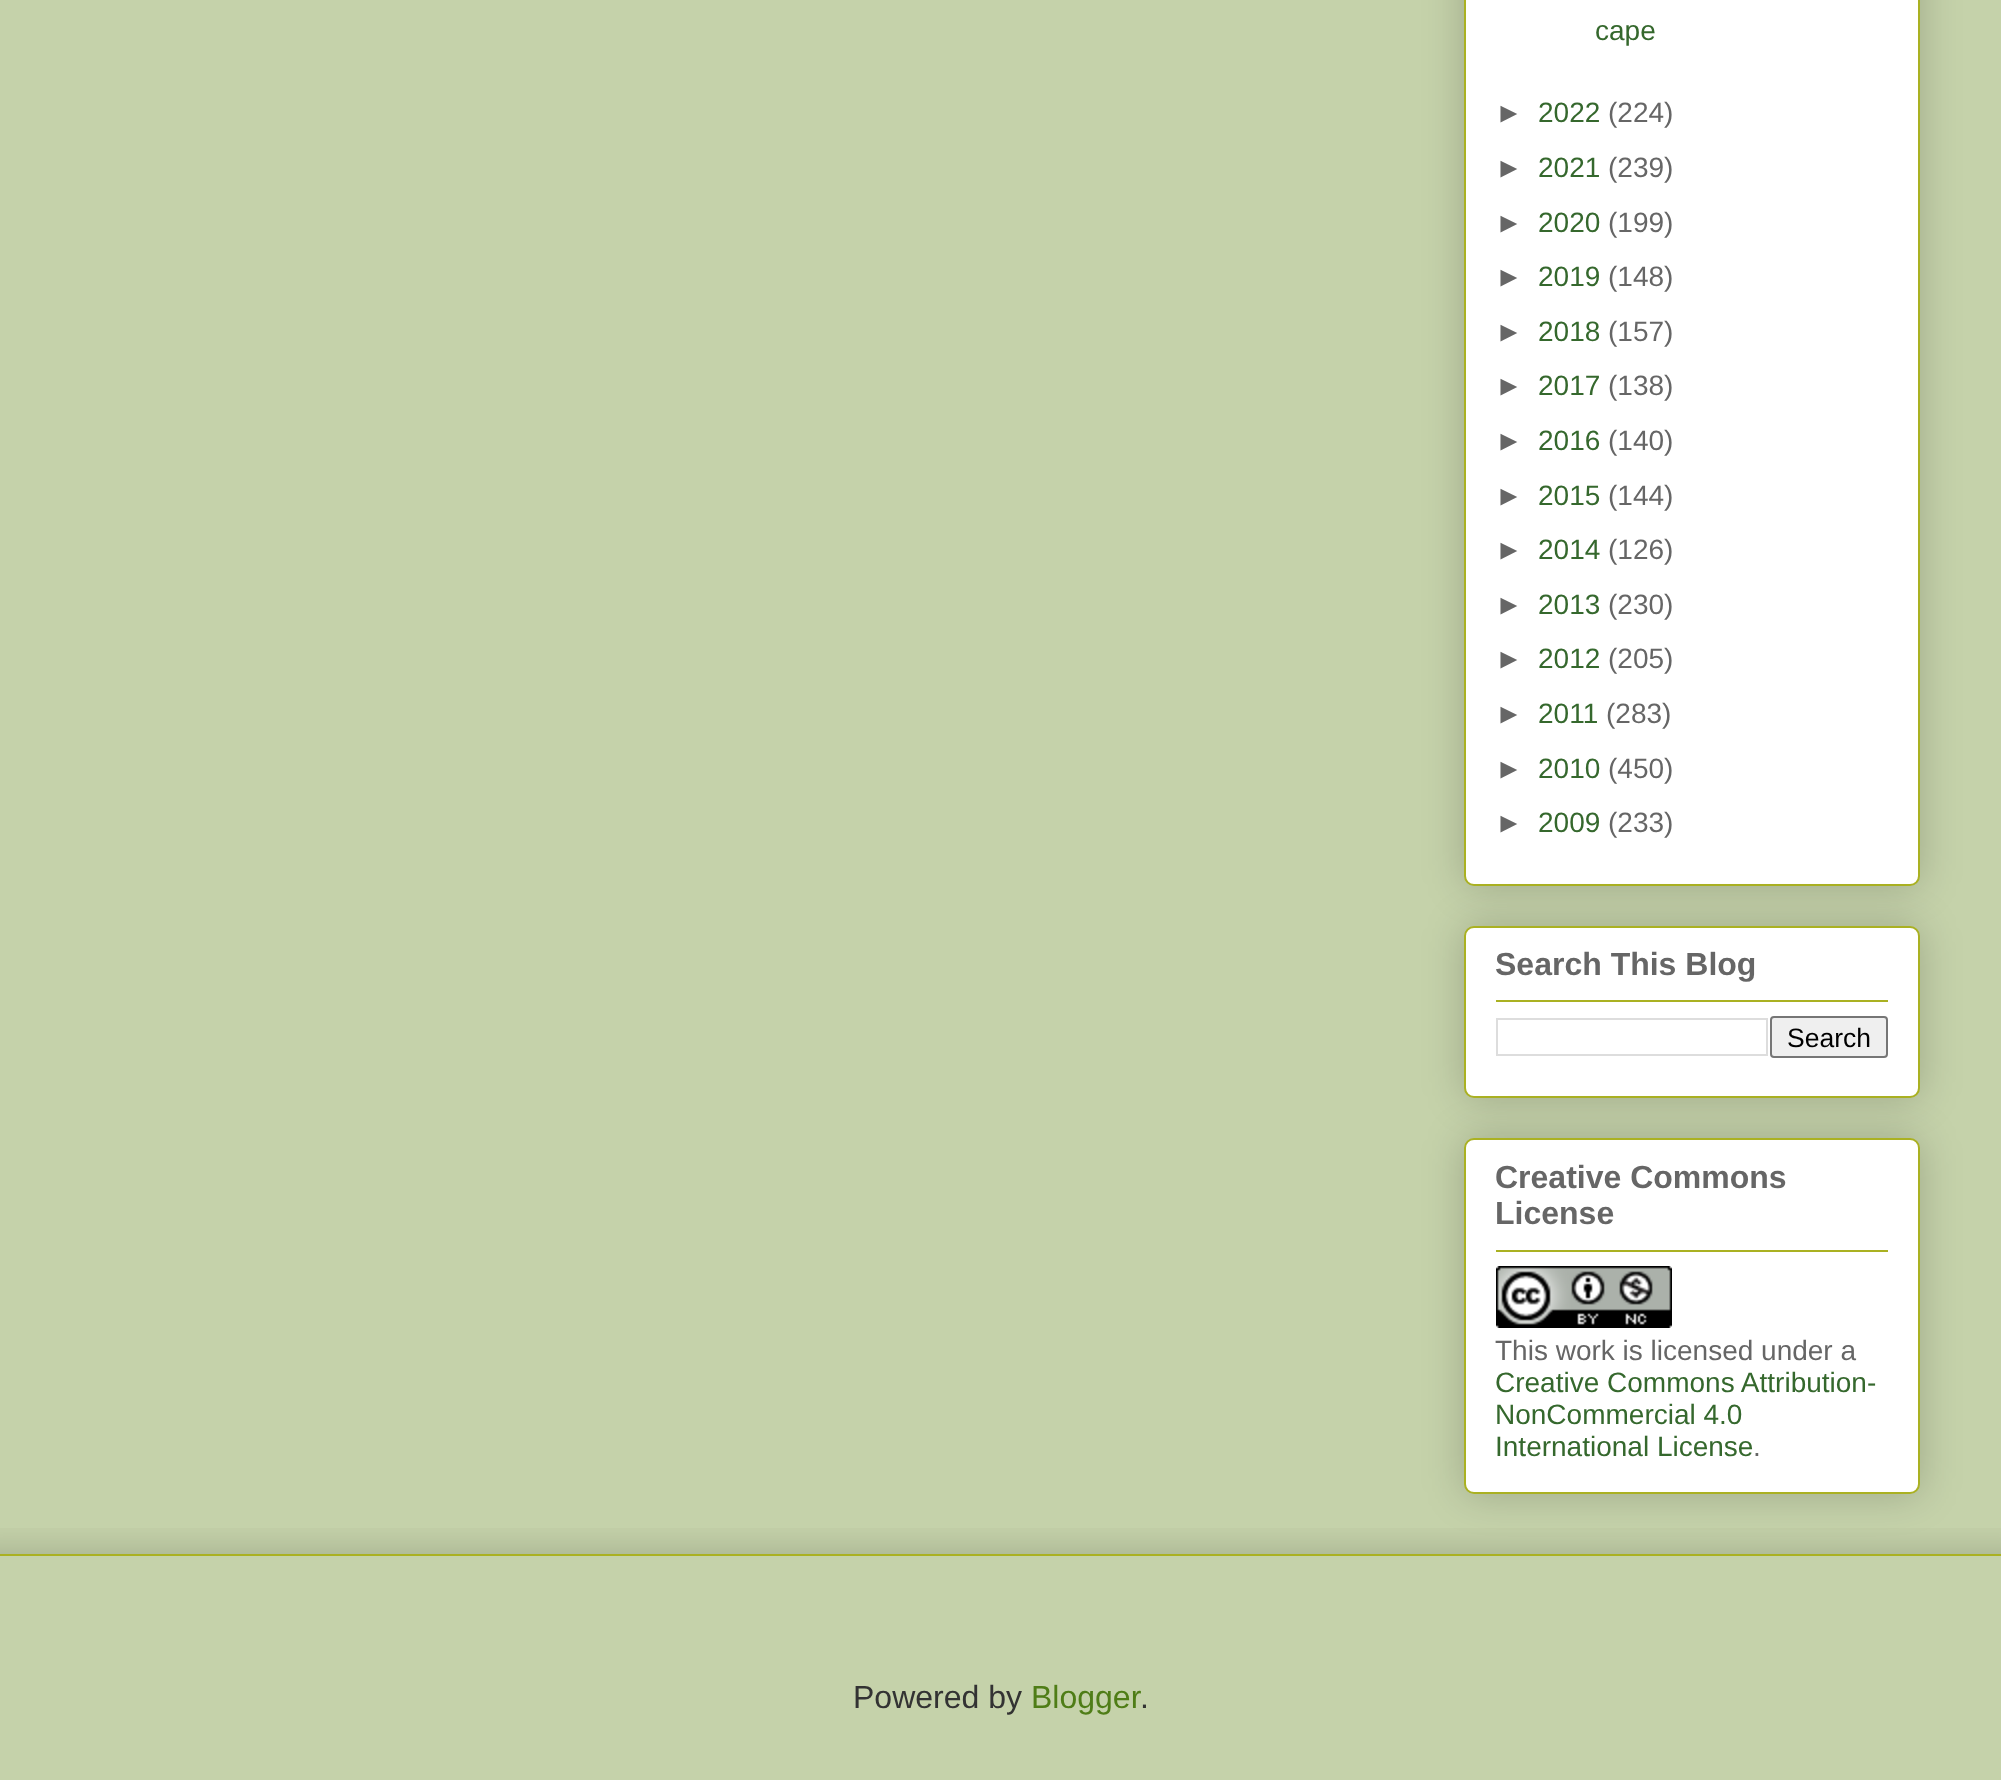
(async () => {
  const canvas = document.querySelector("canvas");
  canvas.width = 2001;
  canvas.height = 1780;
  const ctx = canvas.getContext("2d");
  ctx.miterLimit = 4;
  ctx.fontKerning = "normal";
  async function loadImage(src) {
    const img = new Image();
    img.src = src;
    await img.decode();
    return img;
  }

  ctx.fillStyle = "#c5d2aa";
  ctx.fillRect(0, 0, 2001, 1780);
  ctx.fillStyle = "rgba(0, 0, 0, 0.2)";
  ctx.filter = "blur(20px)";
  ctx.beginPath();
  ctx.roundRect(1464, -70, 456, 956, 10);
  ctx.fill();
  ctx.filter = "none";
  ctx.fillStyle = "#ffffff";
  ctx.beginPath();
  ctx.roundRect(1465, -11, 454, 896, 9);
  ctx.fill();
  ctx.strokeStyle = "#aab122";
  ctx.lineWidth = 2;
  ctx.stroke();
  ctx.fillStyle = "rgba(0, 0, 0, 0.2)";
  ctx.filter = "blur(20px)";
  ctx.beginPath();
  ctx.roundRect(1464, 926, 456, 172, 10);
  ctx.fill();
  ctx.filter = "none";
  ctx.fillStyle = "#ffffff";
  ctx.beginPath();
  ctx.roundRect(1465, 927, 454, 170, 9);
  ctx.fill();
  ctx.stroke();
  ctx.fillStyle = "#aab122";
  ctx.fillRect(1496, 1000, 392, 2);
  ctx.strokeStyle = "#dddddd";
  ctx.strokeRect(1497, 1019, 270, 36);
  ctx.fillStyle = "#efefef";
  ctx.beginPath();
  ctx.roundRect(1771, 1017, 116, 40, 3);
  ctx.fill();
  ctx.strokeStyle = "#767676";
  ctx.stroke();
  ctx.fillStyle = "rgba(0, 0, 0, 0.2)";
  ctx.filter = "blur(20px)";
  ctx.beginPath();
  ctx.roundRect(1464, 1138, 456, 356, 10);
  ctx.fill();
  ctx.filter = "none";
  ctx.fillStyle = "#ffffff";
  ctx.beginPath();
  ctx.roundRect(1465, 1139, 454, 354, 9);
  ctx.fill();
  ctx.strokeStyle = "#aab122";
  ctx.stroke();
  ctx.fillStyle = "#aab122";
  ctx.fillRect(1496, 1250, 392, 2);
  ctx.drawImage(await loadImage("img/1.png"), 1496, 1266, 176, 62);
  ctx.save();
  ctx.beginPath();
  ctx.rect(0, 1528, 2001, 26);
  ctx.clip();
  ctx.fillStyle = "rgba(0, 0, 0, 0.2)";
  ctx.filter = "blur(20px)";
  ctx.beginPath();
  ctx.rect(-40, 1554, 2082, 226);
  ctx.fill();
  ctx.filter = "none";
  ctx.restore();
  ctx.fillRect(0, 1554, 2001, 2);
  ctx.font = "28px Liberation Sans";
  ctx.fillStyle = "#35682d";
  ctx.fillText("cape", 1595, 40);
  ctx.fillStyle = "#666666";
  ctx.fillText("►", 1495, 122);
  ctx.fillStyle = "#35682d";
  ctx.fillText("2022", 1538, 122);
  ctx.fillStyle = "#666666";
  ctx.fillText("(224)", 1608, 122);
  ctx.fillText("►", 1495, 177);
  ctx.fillStyle = "#35682d";
  ctx.fillText("2021", 1538, 177);
  ctx.fillStyle = "#666666";
  ctx.fillText("(239)", 1608, 177);
  ctx.fillText("►", 1495, 232);
  ctx.fillStyle = "#35682d";
  ctx.fillText("2020", 1538, 232);
  ctx.fillStyle = "#666666";
  ctx.fillText("(199)", 1608, 232);
  ctx.fillText("►", 1495, 286);
  ctx.fillStyle = "#35682d";
  ctx.fillText("2019", 1538, 286);
  ctx.fillStyle = "#666666";
  ctx.fillText("(148)", 1608, 286);
  ctx.fillText("►", 1495, 341);
  ctx.fillStyle = "#35682d";
  ctx.fillText("2018", 1538, 341);
  ctx.fillStyle = "#666666";
  ctx.fillText("(157)", 1608, 341);
  ctx.fillText("►", 1495, 395);
  ctx.fillStyle = "#35682d";
  ctx.fillText("2017", 1538, 395);
  ctx.fillStyle = "#666666";
  ctx.fillText("(138)", 1608, 395);
  ctx.fillText("►", 1495, 450);
  ctx.fillStyle = "#35682d";
  ctx.fillText("2016", 1538, 450);
  ctx.fillStyle = "#666666";
  ctx.fillText("(140)", 1608, 450);
  ctx.fillText("►", 1495, 505);
  ctx.fillStyle = "#35682d";
  ctx.fillText("2015", 1538, 505);
  ctx.fillStyle = "#666666";
  ctx.fillText("(144)", 1608, 505);
  ctx.fillText("►", 1495, 559);
  ctx.fillStyle = "#35682d";
  ctx.fillText("2014", 1538, 559);
  ctx.fillStyle = "#666666";
  ctx.fillText("(126)", 1608, 559);
  ctx.fillText("►", 1495, 614);
  ctx.fillStyle = "#35682d";
  ctx.fillText("2013", 1538, 614);
  ctx.fillStyle = "#666666";
  ctx.fillText("(230)", 1608, 614);
  ctx.fillText("►", 1495, 668);
  ctx.fillStyle = "#35682d";
  ctx.fillText("2012", 1538, 668);
  ctx.fillStyle = "#666666";
  ctx.fillText("(205)", 1608, 668);
  ctx.fillText("►", 1495, 723);
  ctx.fillStyle = "#35682d";
  ctx.fillText("2011", 1538, 723);
  ctx.fillStyle = "#666666";
  ctx.fillText("(283)", 1606, 723);
  ctx.fillText("►", 1495, 778);
  ctx.fillStyle = "#35682d";
  ctx.fillText("2010", 1538, 778);
  ctx.fillStyle = "#666666";
  ctx.fillText("(450)", 1608, 778);
  ctx.fillText("►", 1495, 832);
  ctx.fillStyle = "#35682d";
  ctx.fillText("2009", 1538, 832);
  ctx.fillStyle = "#666666";
  ctx.fillText("(233)", 1608, 832);
  ctx.font = "bold 32px Liberation Sans";
  ctx.fillText("Search This Blog", 1495, 975);
  ctx.font = "26.5px Liberation Sans";
  ctx.fillStyle = "#000000";
  ctx.fillText("Search", 1787, 1047);
  ctx.font = "bold 32px Liberation Sans";
  ctx.fillStyle = "#666666";
  ctx.fillText("Creative Commons", 1495, 1188);
  ctx.fillText("License", 1495, 1224);
  ctx.font = "28px Liberation Sans";
  ctx.fillText("This work is licensed under a", 1495, 1360);
  ctx.fillStyle = "#35682d";
  for (const [text, x, y] of [
    ["Creative Commons Attribution-", 1495, 1392],
    ["NonCommercial 4.0", 1495, 1424],
    ["International License", 1495, 1456],
  ]) {
    ctx.fillText(text, x, y);
  }
  ctx.fillStyle = "#666666";
  ctx.fillText(".", 1753, 1456);
  ctx.font = "32px Liberation Sans";
  ctx.fillStyle = "#333333";
  ctx.fillText("Powered by", 853, 1708);
  ctx.fillStyle = "#4f7d17";
  ctx.fillText("Blogger", 1031, 1708);
  ctx.fillStyle = "#333333";
  ctx.fillText(".", 1140, 1708);
})();
